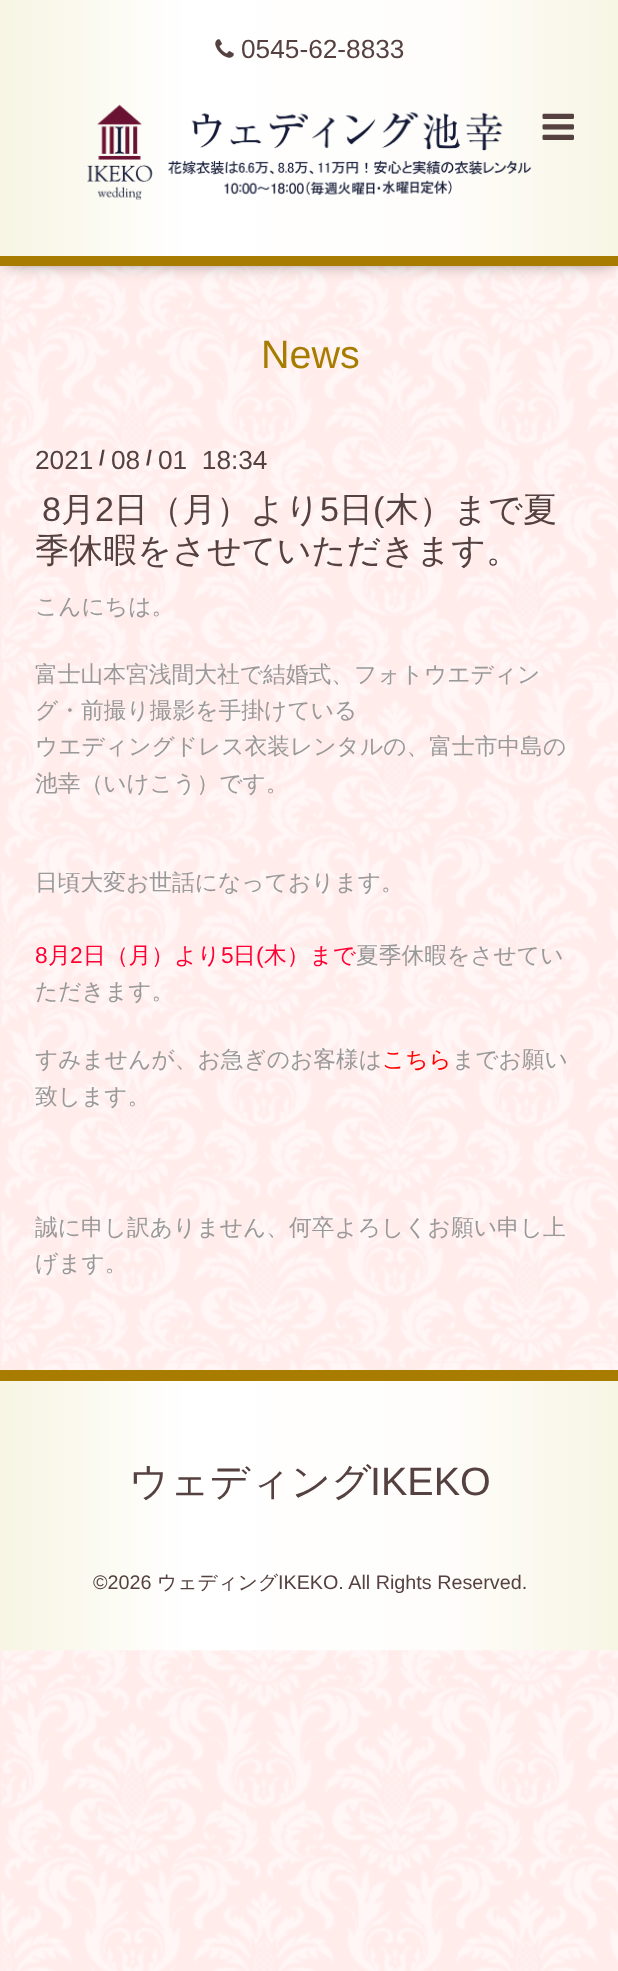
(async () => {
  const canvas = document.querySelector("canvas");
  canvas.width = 618;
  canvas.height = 1971;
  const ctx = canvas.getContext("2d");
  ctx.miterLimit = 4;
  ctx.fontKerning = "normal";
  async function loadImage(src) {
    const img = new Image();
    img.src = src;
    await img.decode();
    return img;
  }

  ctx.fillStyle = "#ffeceb";
  ctx.fillRect(0, 0, 618, 1971);
  ctx.drawImage(await loadImage("img/1.png"), 1, 266, 617, 1705);
  ctx.fillStyle = "rgba(0, 0, 0, 0.6)";
  ctx.filter = "blur(9px)";
  ctx.beginPath();
  ctx.rect(7, 9, 606, 252);
  ctx.fill();
  ctx.filter = "none";
  ctx.drawImage(await loadImage("img/2.png"), 0, 0, 618, 256);
  ctx.fillStyle = "#a87c00";
  ctx.fillRect(0, 256, 618, 10);
  ctx.drawImage(await loadImage("img/3.png"), 215, 39, 19, 19);
  ctx.drawImage(await loadImage("img/4.png"), 87, 104, 445, 96);
  ctx.drawImage(await loadImage("img/5.png"), 542, 113, 32, 27);
  ctx.drawImage(await loadImage("img/6.png"), 0, 1381, 618, 270);
  ctx.fillRect(0, 1370, 618, 11);
  ctx.font = "26.25px Liberation Sans";
  ctx.fillStyle = "#564141";
  ctx.fillText("0545-62-8833", 241, 58);
  ctx.font = "39.5px Liberation Sans";
  ctx.fillStyle = "#a87c00";
  ctx.fillText("News", 261, 368);
  ctx.font = "26.25px Liberation Sans";
  ctx.fillStyle = "#564141";
  ctx.fillText("2021", 35, 469);
  ctx.font = "bold 21px Liberation Sans";
  ctx.fillText("/", 99, 465);
  ctx.font = "26.25px Liberation Sans";
  ctx.fillText("08", 111, 469);
  ctx.font = "bold 21px Liberation Sans";
  ctx.fillText("/", 146, 465);
  ctx.font = "26.25px Liberation Sans";
  ctx.fillText("01  18:34", 158, 469);
  ctx.font = "34.1px Liberation Sans";
  ctx.fillText("8", 42, 521);
  ctx.font = "500 34.1px WenQuanYi Zen Hei";
  ctx.fillText("月", 61, 521);
  ctx.font = "34.1px Liberation Sans";
  ctx.fillText("2", 95, 521);
  ctx.font = "500 34.1px WenQuanYi Zen Hei";
  ctx.fillText("日（月）より", 114, 521);
  ctx.font = "34.1px Liberation Sans";
  ctx.fillText("5", 320, 521);
  ctx.font = "500 34.1px WenQuanYi Zen Hei";
  ctx.fillText("日", 339, 521);
  ctx.font = "34.1px Liberation Sans";
  ctx.fillText("(", 373, 521);
  ctx.font = "500 34.1px WenQuanYi Zen Hei";
  ctx.fillText("木）まで夏", 385, 521);
  ctx.fillText("季休暇をさせていただきます。", 35, 562);
  ctx.font = "500 22.75px WenQuanYi Zen Hei";
  ctx.fillStyle = "#999999";
  for (const [text, x, y] of [
    ["こんにちは。", 35, 614],
    ["富士山本宮浅間大社で結婚式、フォトウエディン", 35, 682],
    ["グ・前撮り撮影を手掛けている", 35, 718],
    ["ウエディングドレス衣装レンタルの、富士市中島の", 35, 754],
    ["池幸（いけこう）です。", 35, 791],
    ["日頃大変お世話になっております。", 35, 890],
  ]) {
    ctx.fillText(text, x, y);
  }
  ctx.font = "22.75px Liberation Sans";
  ctx.fillStyle = "#ff0033";
  ctx.fillText("8", 35, 963);
  ctx.font = "500 22.75px WenQuanYi Zen Hei";
  ctx.fillText("月", 48, 963);
  ctx.font = "22.75px Liberation Sans";
  ctx.fillText("2", 70, 963);
  ctx.font = "500 22.75px WenQuanYi Zen Hei";
  ctx.fillText("日（月）より", 83, 963);
  ctx.font = "22.75px Liberation Sans";
  ctx.fillText("5", 221, 963);
  ctx.font = "500 22.75px WenQuanYi Zen Hei";
  ctx.fillText("日", 233, 963);
  ctx.font = "22.75px Liberation Sans";
  ctx.fillText("(", 256, 963);
  ctx.font = "500 22.75px WenQuanYi Zen Hei";
  ctx.fillText("木）まで", 264, 963);
  ctx.fillStyle = "#999999";
  for (const [text, x, y] of [
    ["夏季休暇をさせてい", 356, 963],
    ["ただきます。", 35, 999],
    ["すみませんが、お急ぎのお客様は", 35, 1067],
  ]) {
    ctx.fillText(text, x, y);
  }
  ctx.fillStyle = "#ff0000";
  ctx.fillText("こちら", 382, 1067);
  ctx.fillStyle = "#999999";
  for (const [text, x, y] of [
    ["までお願い", 452, 1067],
    ["致します。", 35, 1104],
    ["誠に申し訳ありません、何卒よろしくお願い申し上", 35, 1235],
    ["げます。", 35, 1271],
  ]) {
    ctx.fillText(text, x, y);
  }
  ctx.font = "500 39.5px WenQuanYi Zen Hei";
  ctx.fillStyle = "#564141";
  ctx.fillText("ウェディング", 129, 1495);
  ctx.font = "39.5px Liberation Sans";
  ctx.fillText("IKEKO", 370, 1495);
  ctx.font = "19.75px Liberation Sans";
  ctx.fillText("©2026", 93, 1589);
  ctx.font = "500 19.75px WenQuanYi Zen Hei";
  ctx.fillText("ウェディング", 157, 1589);
  ctx.font = "19.75px Liberation Sans";
  ctx.fillText("IKEKO. All Rights Reserved.", 278, 1589);
})();
